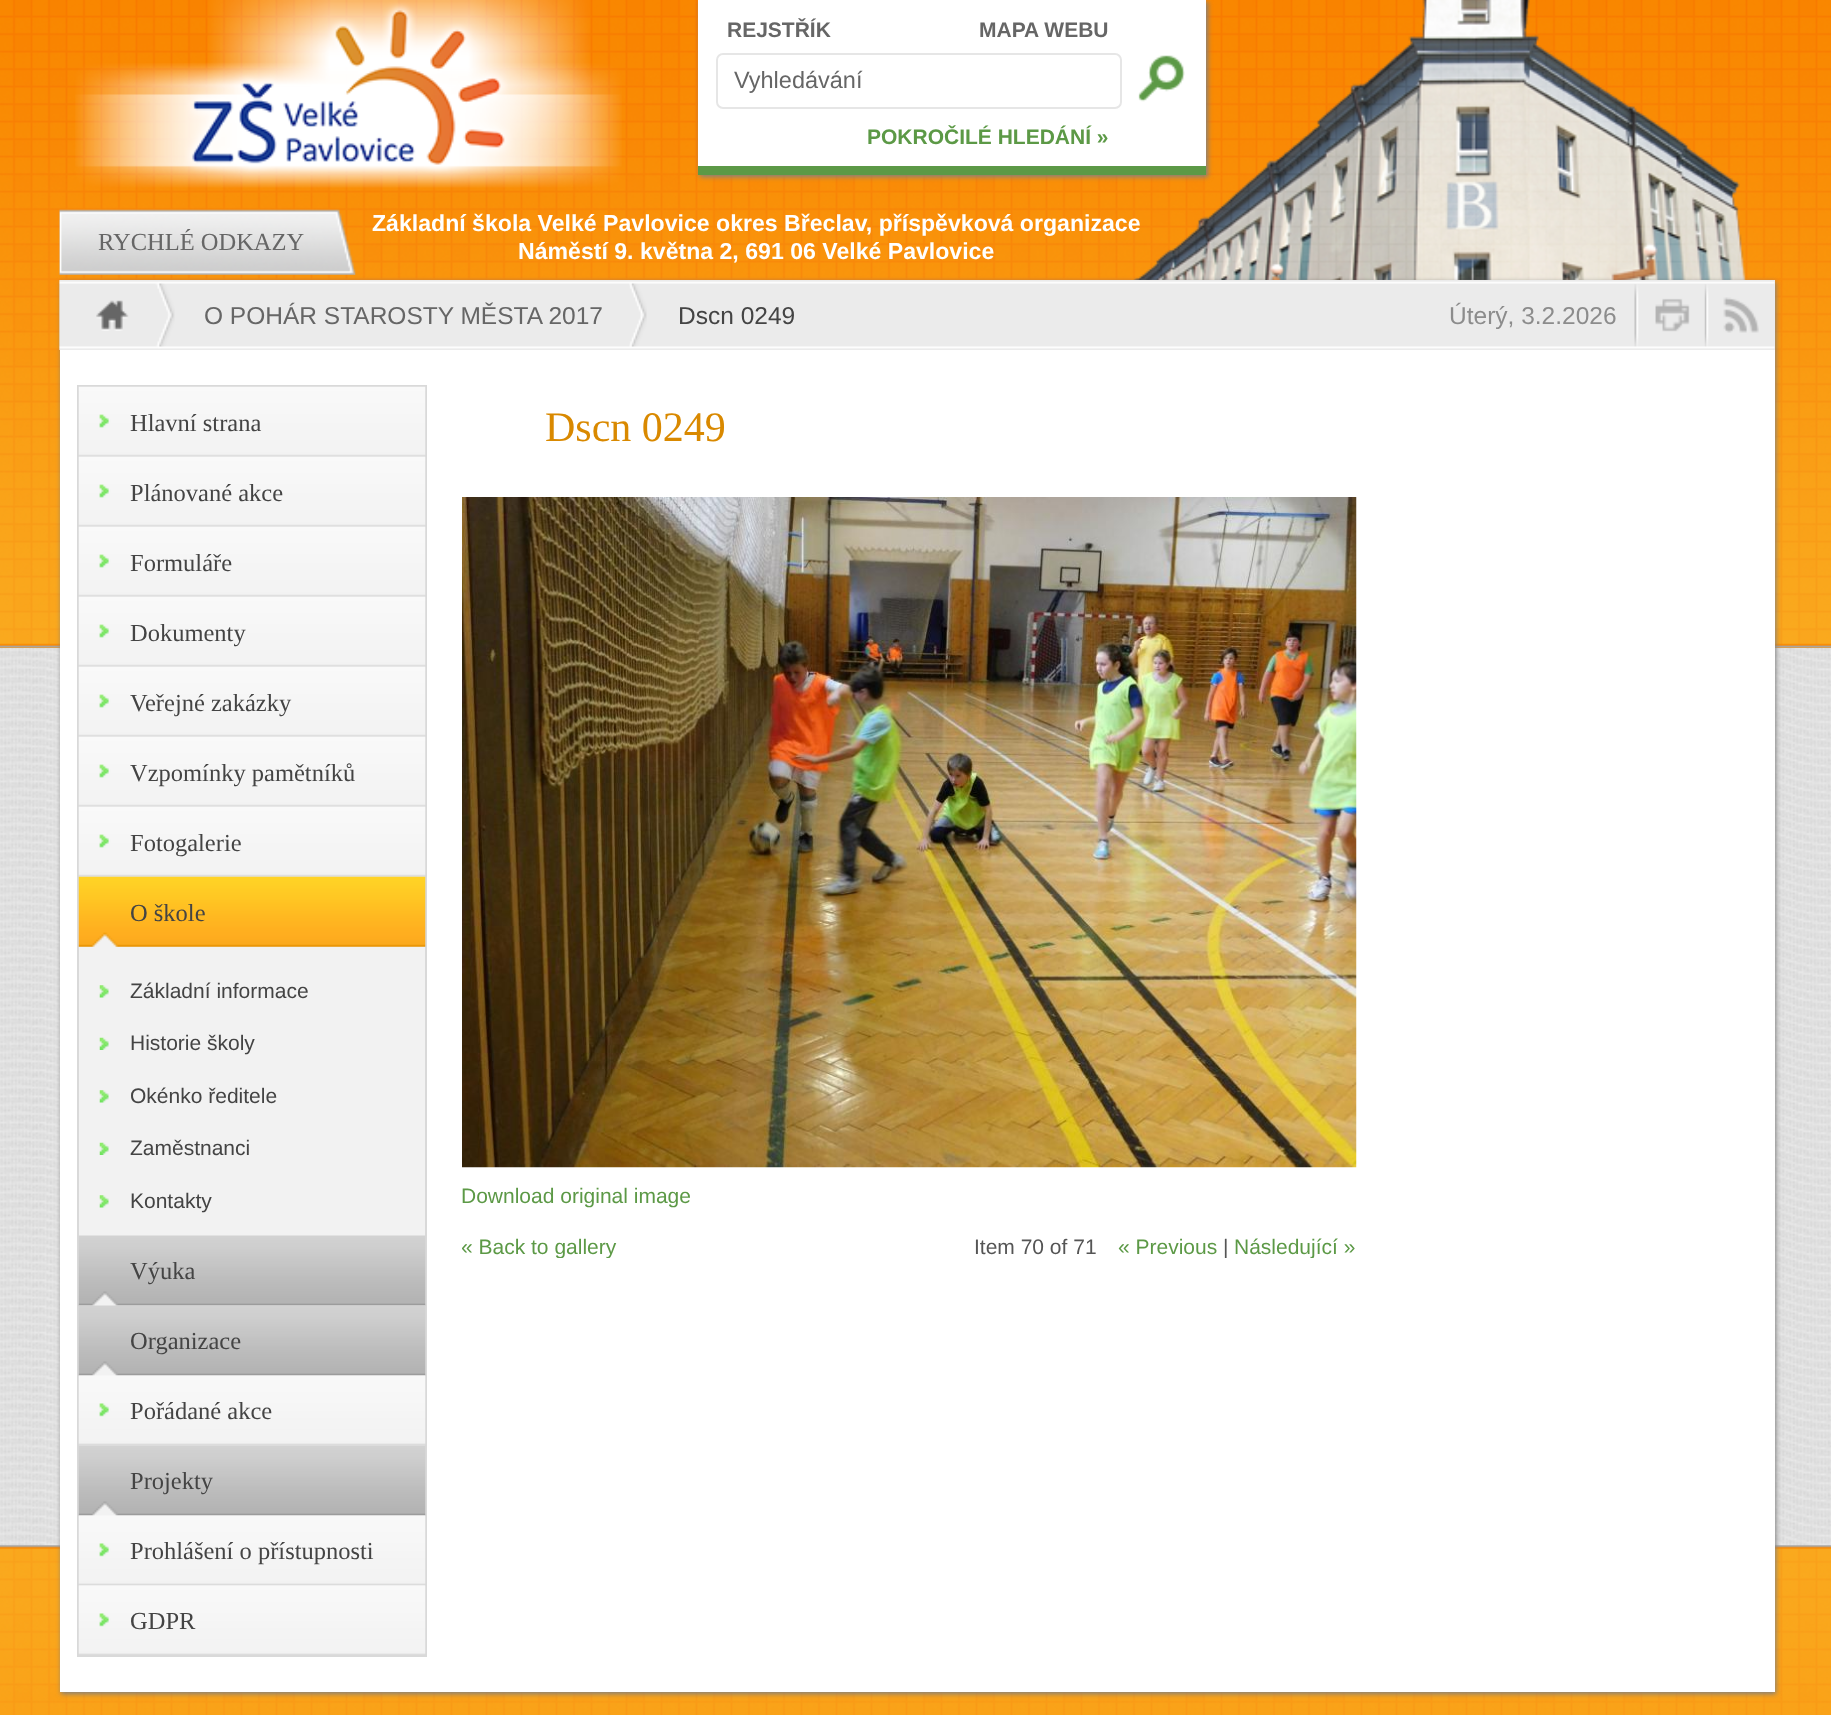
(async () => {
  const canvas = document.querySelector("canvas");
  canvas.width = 1831;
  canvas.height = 1715;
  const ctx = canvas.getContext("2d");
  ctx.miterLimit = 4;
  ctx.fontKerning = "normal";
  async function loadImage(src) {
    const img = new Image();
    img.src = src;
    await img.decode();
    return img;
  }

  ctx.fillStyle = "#ffffff";
  ctx.fillRect(0, 0, 1831, 1715);
  ctx.drawImage(await loadImage("img/1.png"), 0, 648, 1831, 898);
  ctx.fillStyle = "#fa960d";
  ctx.fillRect(0, 647, 1831, 1);
  ctx.drawImage(await loadImage("img/2.png"), 0, 0, 1831, 648);
  ctx.drawImage(await loadImage("img/3.png"), 75, 0, 547, 188);
  ctx.drawImage(await loadImage("img/5.png"), 1133, 0, 614, 280);
  ctx.fillStyle = "#808080";
  ctx.filter = "blur(2.5px)";
  ctx.beginPath();
  ctx.rect(700, 2, 508, 175);
  ctx.fill();
  ctx.filter = "none";
  ctx.fillStyle = "#ffffff";
  ctx.fillRect(698, 0, 508, 166);
  ctx.fillStyle = "#5c9946";
  ctx.fillRect(698, 166, 508, 9);
  ctx.beginPath();
  ctx.roundRect(717, 54, 404, 54, 6);
  ctx.strokeStyle = "#e6e6e6";
  ctx.lineWidth = 2;
  ctx.stroke();
  ctx.drawImage(await loadImage("img/4.png"), 1138, 55, 47, 47);
  ctx.drawImage(await loadImage("img/24.png"), 0, 1545, 1831, 170);
  ctx.fillStyle = "#808080";
  ctx.filter = "blur(2.5px)";
  ctx.beginPath();
  ctx.rect(61, 282, 1715, 1412);
  ctx.fill();
  ctx.filter = "none";
  ctx.drawImage(await loadImage("img/6.png"), 59, 209, 297, 66);
  ctx.fillStyle = "#ffffff";
  ctx.fillRect(60, 350, 1715, 1342);
  ctx.fillStyle = "#ebebeb";
  ctx.fillRect(1774, 280, 1, 70);
  ctx.drawImage(await loadImage("img/7.png"), 59, 280, 1716, 70);
  ctx.drawImage(await loadImage("img/8.png"), 59, 280, 116, 70);
  ctx.drawImage(await loadImage("img/9.png"), 96, 300, 33, 31);
  ctx.drawImage(await loadImage("img/10.png"), 629, 283, 18, 64);
  ctx.drawImage(await loadImage("img/12.png"), 1704, 284, 55, 63);
  ctx.drawImage(await loadImage("img/11.png"), 1634, 284, 71, 63);
  ctx.fillStyle = "#f2f2f2";
  ctx.fillRect(79, 456, 346, 1130);
  ctx.strokeStyle = "#d9d9d9";
  ctx.strokeRect(78, 386, 348, 1270);
  ctx.drawImage(await loadImage("img/13.png"), 78, 386, 348, 71);
  ctx.drawImage(await loadImage("img/14.png"), 78, 456, 348, 71);
  ctx.drawImage(await loadImage("img/14.png"), 78, 526, 348, 71);
  ctx.drawImage(await loadImage("img/14.png"), 78, 596, 348, 71);
  ctx.drawImage(await loadImage("img/14.png"), 78, 666, 348, 71);
  ctx.drawImage(await loadImage("img/14.png"), 78, 736, 348, 71);
  ctx.drawImage(await loadImage("img/14.png"), 78, 806, 348, 71);
  ctx.drawImage(await loadImage("img/15.png"), 78, 876, 348, 71);
  ctx.drawImage(await loadImage("img/16.png"), 99, 985, 10, 13);
  ctx.drawImage(await loadImage("img/17.png"), 99, 1037, 10, 13);
  ctx.drawImage(await loadImage("img/16.png"), 99, 1090, 10, 13);
  ctx.drawImage(await loadImage("img/17.png"), 99, 1142, 10, 13);
  ctx.drawImage(await loadImage("img/16.png"), 99, 1195, 10, 13);
  ctx.drawImage(await loadImage("img/18.png"), 78, 1235, 348, 71);
  ctx.drawImage(await loadImage("img/19.png"), 78, 1305, 348, 71);
  ctx.drawImage(await loadImage("img/20.png"), 78, 1375, 348, 71);
  ctx.drawImage(await loadImage("img/21.png"), 78, 1445, 348, 71);
  ctx.drawImage(await loadImage("img/20.png"), 78, 1515, 348, 71);
  ctx.drawImage(await loadImage("img/22.png"), 78, 1585, 348, 70);
  ctx.drawImage(await loadImage("img/23.png"), 462, 497, 895, 671);
  ctx.font = "bold 21px Liberation Sans";
  ctx.fillStyle = "#666666";
  ctx.fillText("REJSTŘÍK", 727, 37);
  ctx.fillText("MAPA WEBU", 979, 37);
  ctx.font = "23.5px Liberation Sans";
  ctx.fillText("Vyhledávání", 734, 88);
  ctx.font = "bold 21px Liberation Sans";
  ctx.fillStyle = "#5c9946";
  ctx.fillText("POKROČILÉ HLEDÁNÍ »", 867, 144);
  ctx.font = "24.5px Liberation Serif";
  ctx.fillStyle = "#666666";
  ctx.fillText("RYCHLÉ ODKAZY", 98, 250);
  ctx.font = "bold 23.1px Liberation Sans";
  ctx.fillStyle = "#ffffff";
  ctx.fillText("Základní škola Velké Pavlovice okres Břeclav, příspěvková organizace", 372, 231);
  ctx.fillText("Náměstí 9. května 2, 691 06 Velké Pavlovice", 518, 259);
  ctx.font = "24.5px Liberation Sans";
  ctx.fillStyle = "#666666";
  ctx.fillText("O POHÁR STAROSTY MĚSTA 2017", 204, 324);
  ctx.fillStyle = "#444444";
  ctx.fillText("Dscn 0249", 678, 324);
  ctx.fillStyle = "#8c8c8c";
  ctx.fillText("Úterý, 3.2.2026", 1449, 324);
  ctx.font = "24.5px Liberation Serif";
  ctx.fillStyle = "#444444";
  for (const [text, x, y] of [
    ["Hlavní strana", 130, 431],
    ["Plánované akce", 130, 501],
    ["Formuláře", 130, 571],
    ["Dokumenty", 130, 641],
    ["Veřejné zakázky", 130, 711],
    ["Vzpomínky pamětníků", 130, 781],
    ["Fotogalerie", 130, 851],
    ["O škole", 130, 921],
  ]) {
    ctx.fillText(text, x, y);
  }
  ctx.font = "21px Liberation Sans";
  for (const [text, x, y] of [
    ["Základní informace", 130, 998],
    ["Historie školy", 130, 1050],
    ["Okénko ředitele", 130, 1103],
    ["Zaměstnanci", 130, 1155],
    ["Kontakty", 130, 1208],
  ]) {
    ctx.fillText(text, x, y);
  }
  ctx.font = "24.5px Liberation Serif";
  for (const [text, x, y] of [
    ["Výuka", 130, 1279],
    ["Organizace", 130, 1349],
    ["Pořádané akce", 130, 1419],
    ["Projekty", 130, 1489],
    ["Prohlášení o přístupnosti", 130, 1559],
    ["GDPR", 130, 1629],
  ]) {
    ctx.fillText(text, x, y);
  }
  ctx.font = "42px Liberation Serif";
  ctx.fillStyle = "#d98900";
  ctx.fillText("Dscn 0249", 545, 441);
  ctx.font = "21px Liberation Sans";
  ctx.fillStyle = "#5c9946";
  ctx.fillText("Download original image", 461, 1203);
  ctx.save();
  ctx.beginPath();
  ctx.rect(462, 1234, 894, 24);
  ctx.clip();
  ctx.fillText("« Back to gallery", 461, 1254);
  ctx.restore();
  ctx.fillStyle = "#555555";
  ctx.fillText("Item 70 of 71", 974, 1254);
  ctx.fillStyle = "#5c9946";
  ctx.fillText("« Previous", 1118, 1254);
  ctx.save();
  ctx.beginPath();
  ctx.rect(462, 1234, 894, 24);
  ctx.clip();
  ctx.fillStyle = "#555555";
  ctx.fillText("|", 1223, 1254);
  ctx.fillStyle = "#5c9946";
  ctx.fillText("Následující »", 1234, 1254);
  ctx.restore();
})();
